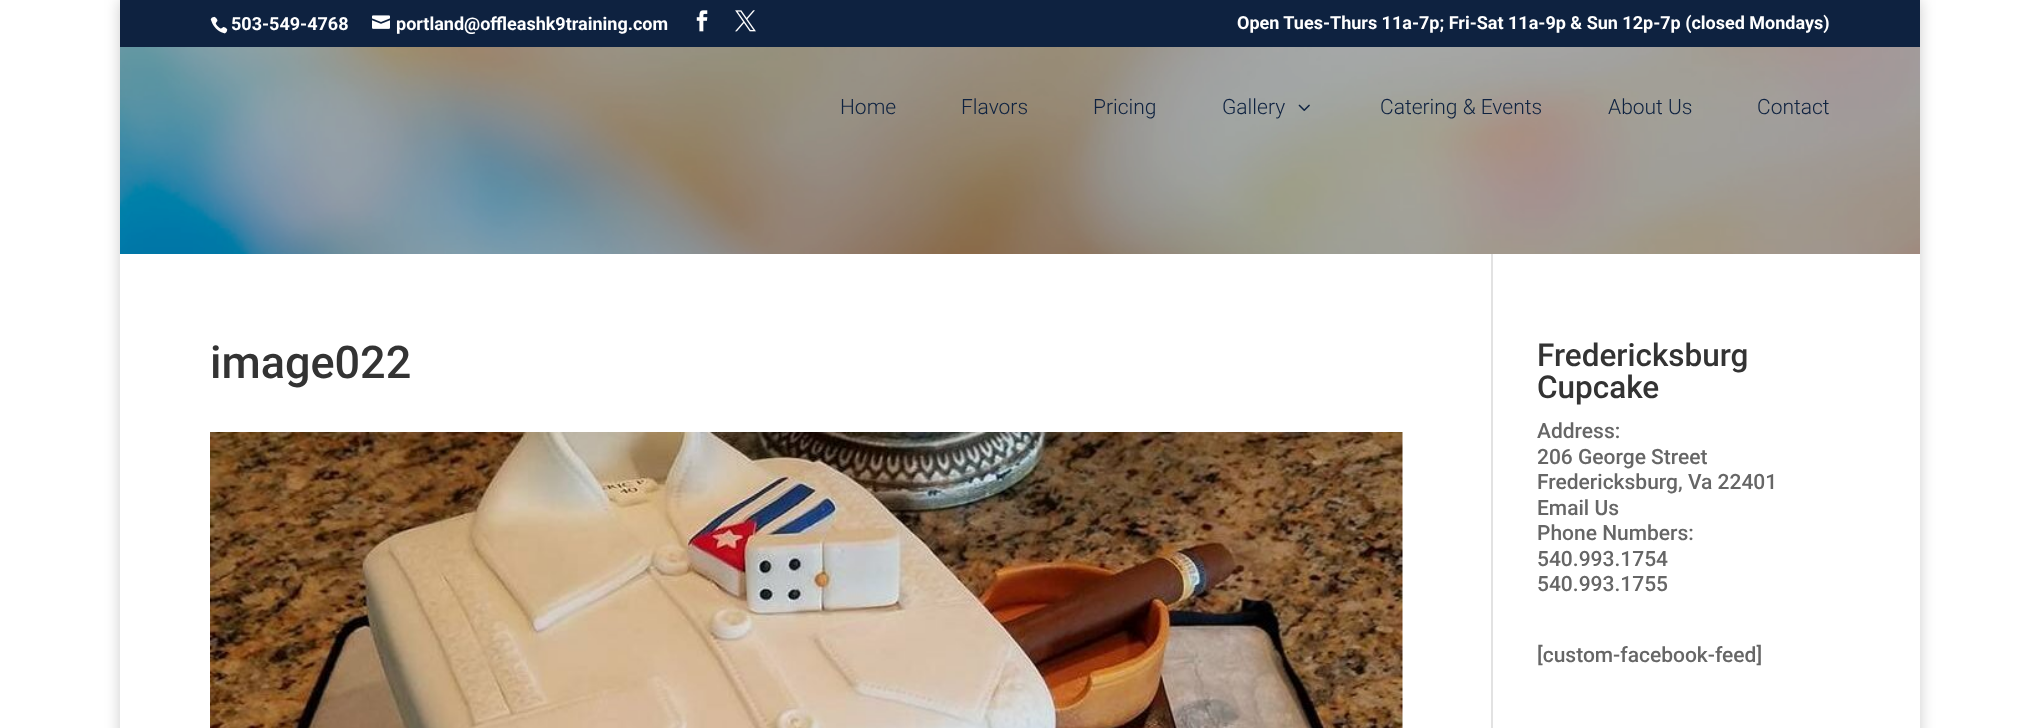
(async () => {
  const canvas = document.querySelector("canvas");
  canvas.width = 2040;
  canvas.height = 728;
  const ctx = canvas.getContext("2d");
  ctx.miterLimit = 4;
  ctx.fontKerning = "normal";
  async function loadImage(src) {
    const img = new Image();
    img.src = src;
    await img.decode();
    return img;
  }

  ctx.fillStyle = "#ffffff";
  ctx.fillRect(0, 0, 2040, 728);
  ctx.fillStyle = "rgba(0, 0, 0, 0.2)";
  ctx.filter = "blur(7.5px)";
  ctx.beginPath();
  ctx.rect(120, 0, 1800, 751);
  ctx.fill();
  ctx.filter = "none";
  ctx.drawImage(await loadImage("img/1.png"), 120, 47, 1800, 207);
  ctx.fillStyle = "#0e2240";
  ctx.fillRect(120, 0, 1800, 47);
  ctx.drawImage(await loadImage("img/2.png"), 210, 16, 18, 18);
  ctx.drawImage(await loadImage("img/3.png"), 372, 15, 18, 14);
  ctx.drawImage(await loadImage("img/4.png"), 696, 10, 12, 22);
  ctx.drawImage(await loadImage("img/5.png"), 735, 10, 21, 22);
  ctx.fillStyle = "rgba(0, 0, 0, 0.3)";
  ctx.fillRect(120, 47, 1800, 207);
  ctx.drawImage(await loadImage("img/6.png"), 1298, 104, 12, 7);
  ctx.fillStyle = "#ffffff";
  ctx.fillRect(120, 254, 1800, 474);
  ctx.fillStyle = "#e2e2e2";
  ctx.fillRect(1491, 254, 2, 474);
  ctx.drawImage(await loadImage("img/7.png"), 210, 432, 1193, 296);
  ctx.font = "bold 18px Roboto";
  ctx.fillStyle = "#ffffff";
  for (const [text, x, y] of [
    ["503-549-4768", 231, 30],
    ["portland@offleashk9training.com", 396, 30],
    ["Open Tues-Thurs 11a-7p; Fri-Sat 11a-9p & Sun 12p-7p (closed Mondays)", 1237, 29],
  ]) {
    ctx.fillText(text, x, y);
  }
  ctx.font = "300 21px Roboto";
  ctx.fillStyle = "#0e2240";
  for (const [text, x, y] of [
    ["Home", 840, 114],
    ["Flavors", 961, 114],
    ["Pricing", 1093, 114],
    ["Gallery", 1222, 114],
    ["Catering & Events", 1380, 114],
    ["About Us", 1608, 114],
    ["Contact", 1757, 114],
  ]) {
    ctx.fillText(text, x, y);
  }
  ctx.font = "500 45px Roboto";
  ctx.fillStyle = "#333333";
  ctx.fillText("image022", 210, 378);
  ctx.font = "500 31.5px Roboto";
  ctx.fillText("Fredericksburg", 1537, 366);
  ctx.fillText("Cupcake", 1537, 398);
  ctx.font = "500 21px Roboto";
  ctx.fillStyle = "#666666";
  for (const [text, x, y] of [
    ["Address:", 1537, 438],
    ["206 George Street", 1537, 464],
    ["Fredericksburg, Va 22401", 1537, 489],
    ["Email Us", 1537, 515],
    ["Phone Numbers:", 1537, 540],
    ["540.993.1754", 1537, 566],
    ["540.993.1755", 1537, 591],
    ["[custom-facebook-feed]", 1537, 662],
  ]) {
    ctx.fillText(text, x, y);
  }
})();
